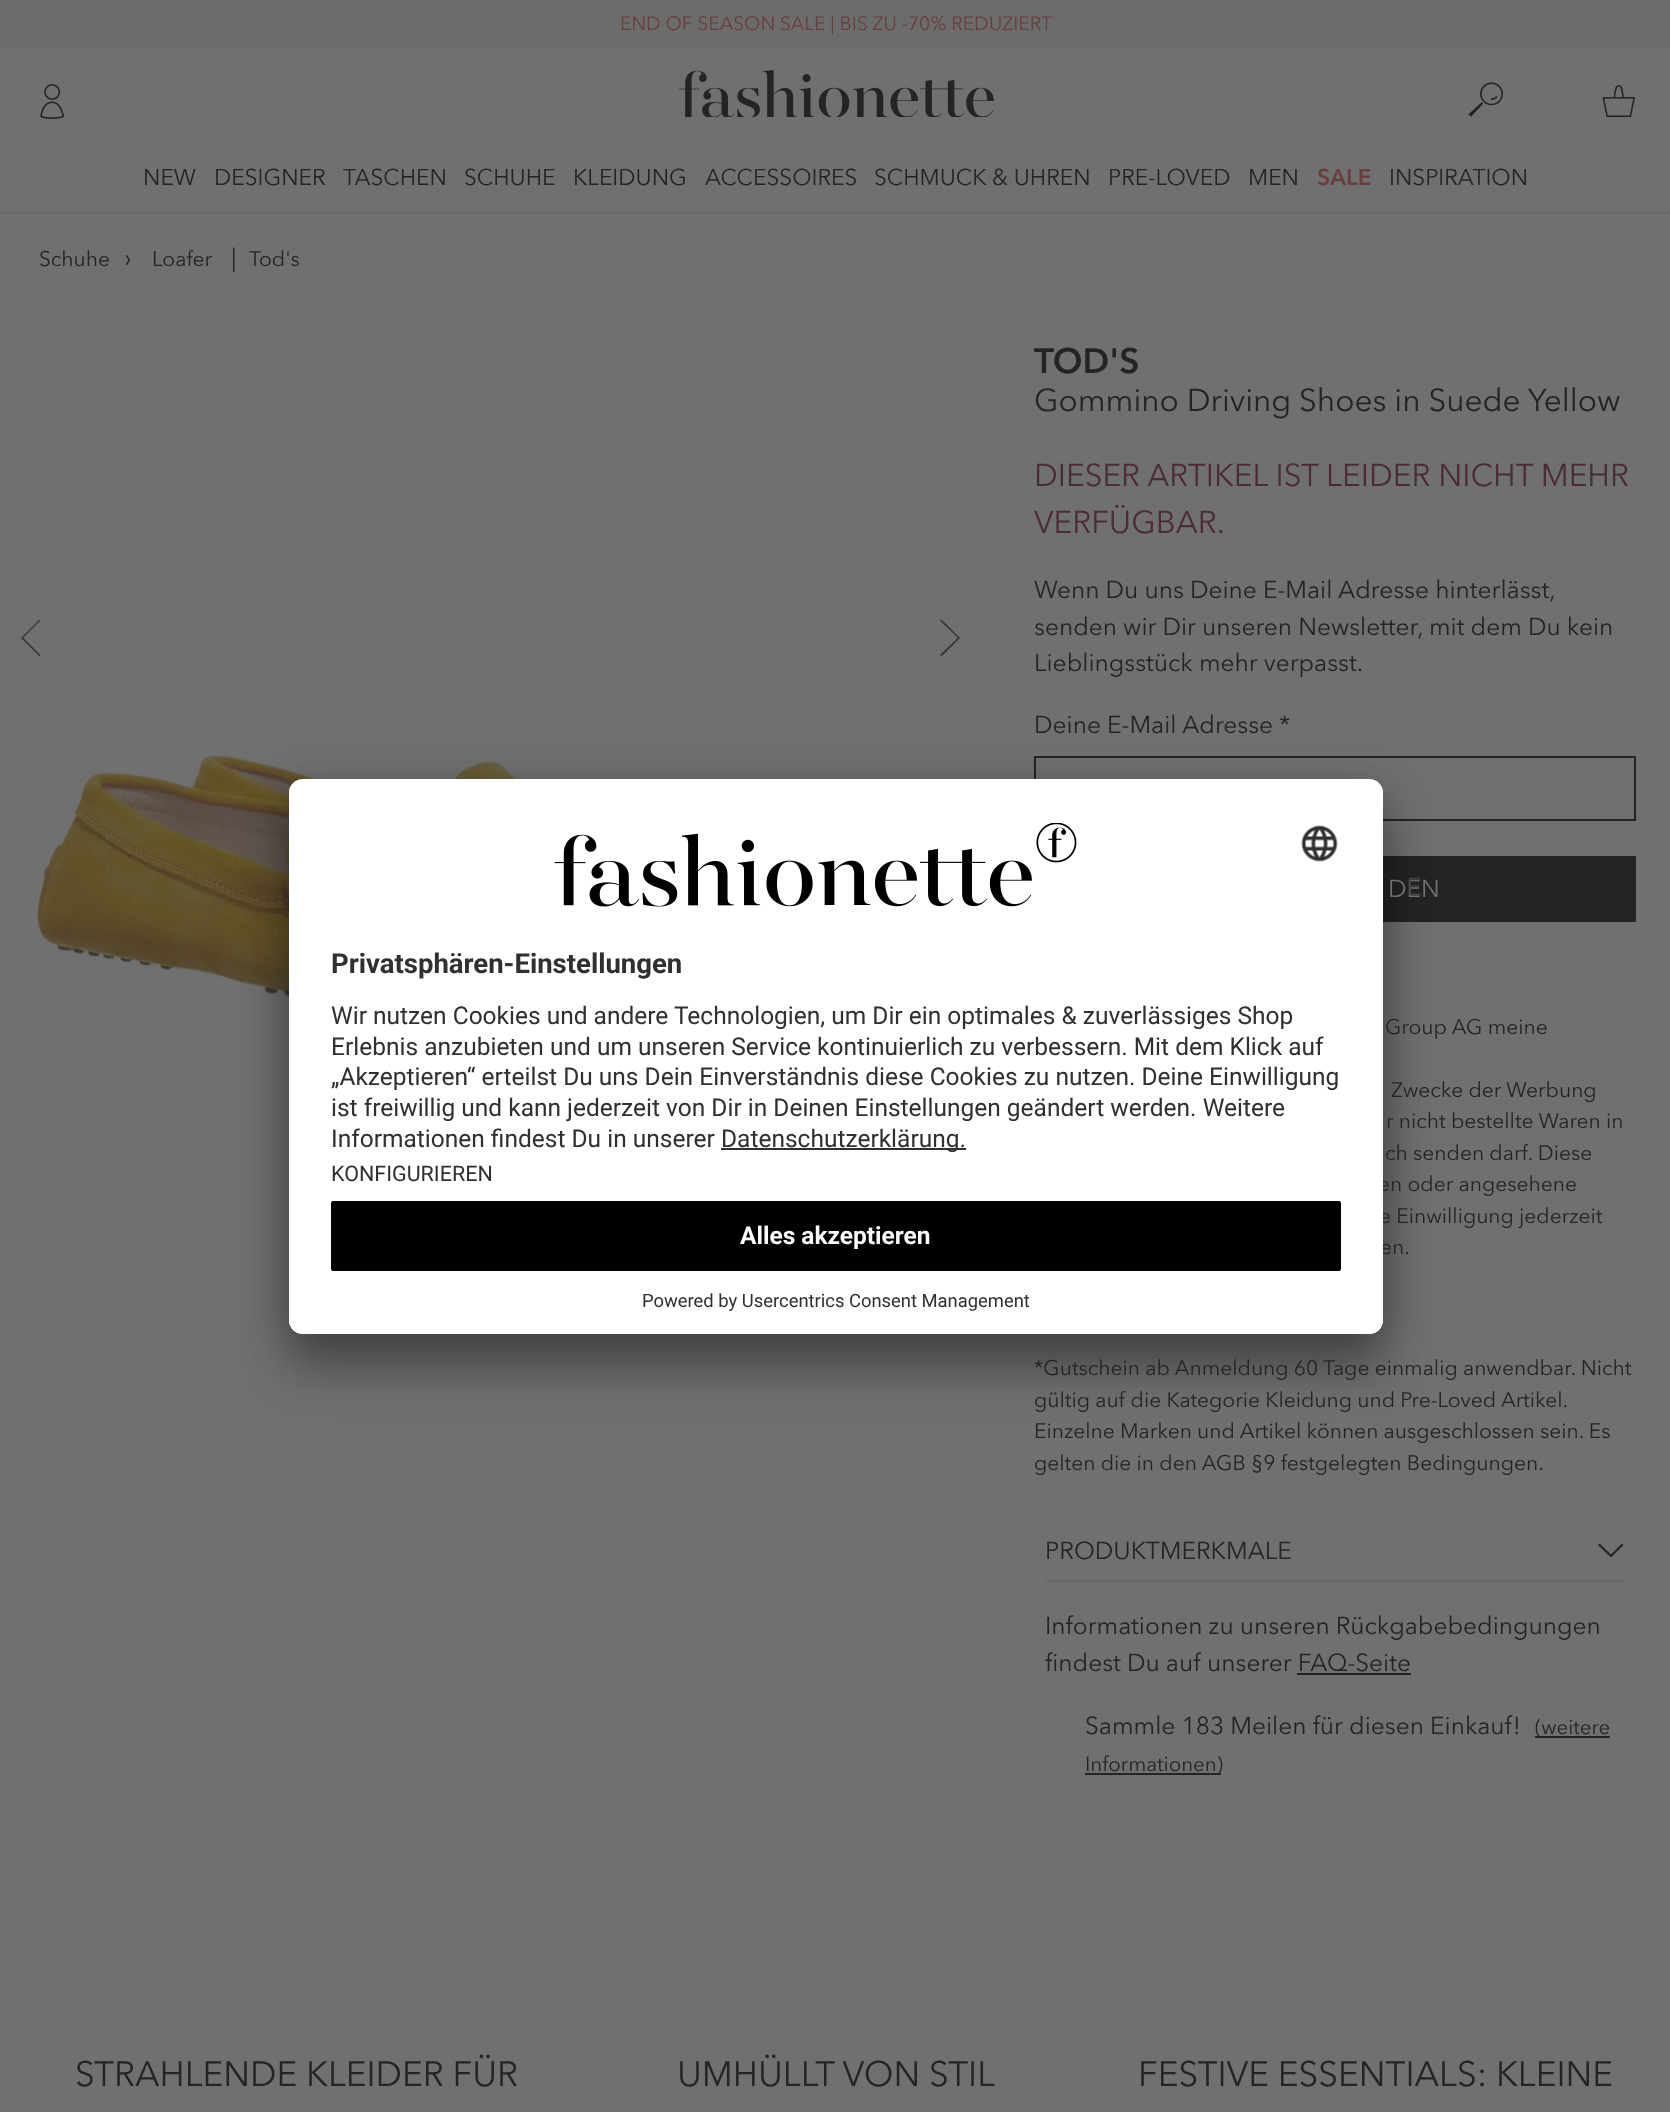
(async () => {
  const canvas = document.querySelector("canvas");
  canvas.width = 1670;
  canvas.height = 2112;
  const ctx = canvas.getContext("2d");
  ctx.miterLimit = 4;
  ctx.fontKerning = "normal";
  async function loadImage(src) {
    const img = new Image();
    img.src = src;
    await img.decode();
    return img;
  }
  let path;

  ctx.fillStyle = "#707070";
  ctx.fillRect(0, 0, 1670, 2112);
  ctx.fillStyle = "#6c6c6c";
  ctx.fillRect(0, 0, 1670, 49);
  ctx.drawImage(await loadImage("img/1.png"), 40, 84, 24, 35);
  ctx.drawImage(await loadImage("img/2.png"), 679, 70, 315, 47);
  ctx.drawImage(await loadImage("img/3.png"), 1468, 82, 35, 35);
  ctx.drawImage(await loadImage("img/4.png"), 1602, 85, 34, 32);
  ctx.fillStyle = "#6b6b6b";
  ctx.fillRect(0, 212, 1670, 2);
  ctx.fillStyle = "#383838";
  path = new Path2D("M21 638L39.5 619.5L40.5 620.5L22 639Z");
  ctx.fill(path);
  path = new Path2D("M21 638L22 636.5L40.5 655L39.5 656.5Z");
  ctx.fill(path);
  path = new Path2D("M960 638L941.5 656.5L940 655L959 636.5Z");
  ctx.fill(path);
  path = new Path2D("M960 638L959 639L940 620.5L941.5 619.5Z");
  ctx.fill(path);
  ctx.drawImage(await loadImage("img/5.png"), 36, 754, 711, 263);
  ctx.strokeStyle = "#242424";
  ctx.lineWidth = 2;
  ctx.strokeRect(1035, 757, 600, 63);
  ctx.fillStyle = "#242424";
  ctx.fillRect(1383, 856, 253, 66);
  ctx.fillStyle = "#686868";
  ctx.fillRect(1045, 1580, 581, 2);
  ctx.save();
  ctx.beginPath();
  ctx.rect(1598, 1544, 26, 15);
  ctx.clip();
  ctx.fillStyle = "#242424";
  path = new Path2D("M1598 1545L1611 1557.5L1623.5 1545L1622 1543.5L1611 1554.5L1599.5 1543.5Z");
  ctx.fill(path);
  ctx.restore();
  for (const [x, y, w, h, color] of [
    [1297, 1673, 114, 2, "#242424"],
    [1535, 1736, 75, 2, "#242424"],
    [1085, 1773, 136, 2, "#242424"],
  ]) {
    ctx.fillStyle = color;
    ctx.fillRect(x, y, w, h);
  }
  ctx.fillStyle = "rgba(0, 0, 0, 0.3)";
  ctx.filter = "blur(24.5px)";
  ctx.beginPath();
  ctx.roundRect(289, 814, 1094, 555, 14);
  ctx.fill();
  ctx.filter = "none";
  ctx.fillStyle = "rgba(0, 0, 0, 0.22)";
  ctx.filter = "blur(23px)";
  ctx.beginPath();
  ctx.roundRect(289, 788, 1094, 554, 14);
  ctx.fill();
  ctx.filter = "none";
  ctx.font = "19.25px Avenir Next";
  ctx.fillStyle = "#673f3c";
  ctx.fillText("END OF SEASON SALE | BIS ZU -70% REDUZIERT", 620, 30);
  ctx.font = "22.75px Avenir Next";
  ctx.fillStyle = "#242424";
  for (const [text, x, y] of [
    ["NEW", 143, 185],
    ["DESIGNER", 214, 185],
    ["TASCHEN", 343, 185],
    ["SCHUHE", 464, 185],
    ["KLEIDUNG", 573, 185],
    ["ACCESSOIRES", 705, 185],
    ["SCHMUCK & UHREN", 874, 185],
    ["PRE-LOVED", 1108, 185],
    ["MEN", 1248, 185],
  ]) {
    ctx.fillText(text, x, y);
  }
  ctx.font = "600 22.75px Avenir Next";
  ctx.fillStyle = "#673f3c";
  ctx.fillText("SALE", 1317, 185);
  ctx.font = "22.75px Avenir Next";
  ctx.fillStyle = "#242424";
  ctx.fillText("INSPIRATION", 1389, 185);
  ctx.font = "21px Avenir Next";
  ctx.fillText("Schuhe", 39, 266);
  ctx.font = "24.5px Avenir Next";
  ctx.fillText("›", 124, 266);
  ctx.font = "21px Avenir Next";
  ctx.fillText("Loafer", 152, 266);
  ctx.font = "24.5px Avenir Next";
  ctx.fillText("|", 231, 266);
  ctx.font = "21px Avenir Next";
  ctx.fillText("Tod's", 249, 266);
  ctx.font = "600 35px Avenir Next";
  ctx.fillText("TOD'S", 1034, 373);
  ctx.font = "31.5px Avenir Next";
  ctx.fillText("Gommino Driving Shoes in Suede Yellow", 1034, 411);
  ctx.fillStyle = "#4a2c35";
  ctx.fillText("DIESER ARTIKEL IST LEIDER NICHT MEHR", 1034, 486);
  ctx.fillText("VERFÜGBAR.", 1034, 533);
  ctx.font = "24.5px Avenir Next";
  ctx.fillStyle = "#242424";
  for (const [text, x, y] of [
    ["Wenn Du uns Deine E-Mail Adresse hinterlässt,", 1034, 598],
    ["senden wir Dir unseren Newsletter, mit dem Du kein", 1034, 635],
    ["Lieblingsstück mehr verpasst.", 1034, 671],
    ["Deine E-Mail Adresse *", 1034, 733],
  ]) {
    ctx.fillText(text, x, y);
  }
  ctx.fillStyle = "#707070";
  ctx.fillText("DEN", 1388, 897);
  ctx.fillStyle = "#434343";
  ctx.fillText("E", 1407, 895);
  ctx.font = "21px Avenir Next";
  ctx.fillStyle = "#242424";
  for (const [text, x, y] of [
    ["Group AG meine", 1385, 1034],
    ["Zwecke der Werbung", 1391, 1097],
    ["r nicht bestellte Waren in", 1386, 1128],
    ["ch senden darf. Diese", 1385, 1160],
    ["en oder angesehene", 1378, 1191],
    ["e Einwilligung jederzeit", 1379, 1223],
    ["en.", 1380, 1254],
    ["*Gutschein ab Anmeldung 60 Tage einmalig anwendbar. Nicht", 1034, 1375],
    ["gültig auf die Kategorie Kleidung und Pre-Loved Artikel.", 1034, 1407],
    ["Einzelne Marken und Artikel können ausgeschlossen sein. Es", 1034, 1438],
    ["gelten die in den AGB §9 festgelegten Bedingungen.", 1034, 1470],
  ]) {
    ctx.fillText(text, x, y);
  }
  ctx.font = "24.5px Avenir Next";
  for (const [text, x, y] of [
    ["PRODUKTMERKMALE", 1045, 1559],
    ["Informationen zu unseren Rückgabebedingungen", 1045, 1634],
    ["findest Du auf unserer FAQ-Seite", 1045, 1671],
    ["Sammle 183 Meilen für diesen Einkauf!", 1085, 1734],
  ]) {
    ctx.fillText(text, x, y);
  }
  ctx.font = "20.5px Avenir Next";
  ctx.fillText("(weitere", 1535, 1734);
  ctx.fillText("Informationen)", 1085, 1771);
  ctx.font = "35px Avenir Next";
  for (const [text, x, y] of [
    ["STRAHLENDE KLEIDER FÜR", 75, 2086],
    ["UMHÜLLT VON STIL", 677, 2086],
    ["FESTIVE ESSENTIALS: KLEINE", 1138, 2086],
  ]) {
    ctx.fillText(text, x, y);
  }
  ctx.fillStyle = "#ffffff";
  ctx.beginPath();
  ctx.roundRect(289, 779, 1094, 555, 14);
  ctx.fill();
  ctx.save();
  ctx.beginPath();
  ctx.roundRect(289, 779, 1094, 555, 14);
  ctx.clip();
  ctx.beginPath();
  ctx.roundRect(289, 779, 1094, 408, [14, 14, 0, 0]);
  ctx.clip();
  ctx.fillRect(289, 781, 1094, 406);
  ctx.restore();
  ctx.drawImage(await loadImage("img/6.png"), 554, 823, 523, 84);
  ctx.drawImage(await loadImage("img/7.png"), 1301, 825, 37, 37);
  ctx.font = "bold 27.5px Roboto";
  ctx.fillStyle = "#303030";
  ctx.fillText("Privatsphären-Einstellungen", 331, 973);
  ctx.font = "24.5px Roboto";
  for (const [text, x, y] of [
    ["Wir nutzen Cookies und andere Technologien, um Dir ein optimales & zuverlässiges Shop", 331, 1024],
    ["Erlebnis anzubieten und um unseren Service kontinuierlich zu verbessern. Mit dem Klick auf", 331, 1055],
    ["„Akzeptieren“ erteilst Du uns Dein Einverständnis diese Cookies zu nutzen. Deine Einwilligung", 331, 1085],
    ["ist freiwillig und kann jederzeit von Dir in Deinen Einstellungen geändert werden. Weitere", 331, 1116],
    ["Informationen findest Du in unserer", 331, 1147],
  ]) {
    ctx.fillText(text, x, y);
  }
  ctx.fillRect(721, 1148, 245, 2);
  ctx.fillText("Datenschutzerklärung.", 721, 1147);
  ctx.font = "21.5px Roboto";
  ctx.fillText("KONFIGURIEREN", 331, 1181);
  ctx.fillStyle = "#ffffff";
  ctx.beginPath();
  ctx.roundRect(289, 1187, 1094, 147, [0, 0, 14, 14]);
  ctx.fill();
  ctx.fillStyle = "#000000";
  ctx.beginPath();
  ctx.roundRect(331, 1201, 1010, 70, 2);
  ctx.fill();
  ctx.font = "bold 24.5px Roboto";
  ctx.fillStyle = "#fafafa";
  ctx.fillText("Alles akzeptieren", 740, 1244);
  ctx.font = "18.4px Roboto";
  ctx.fillStyle = "#303030";
  ctx.fillText("Powered by Usercentrics Consent Management", 642, 1307);
})();
